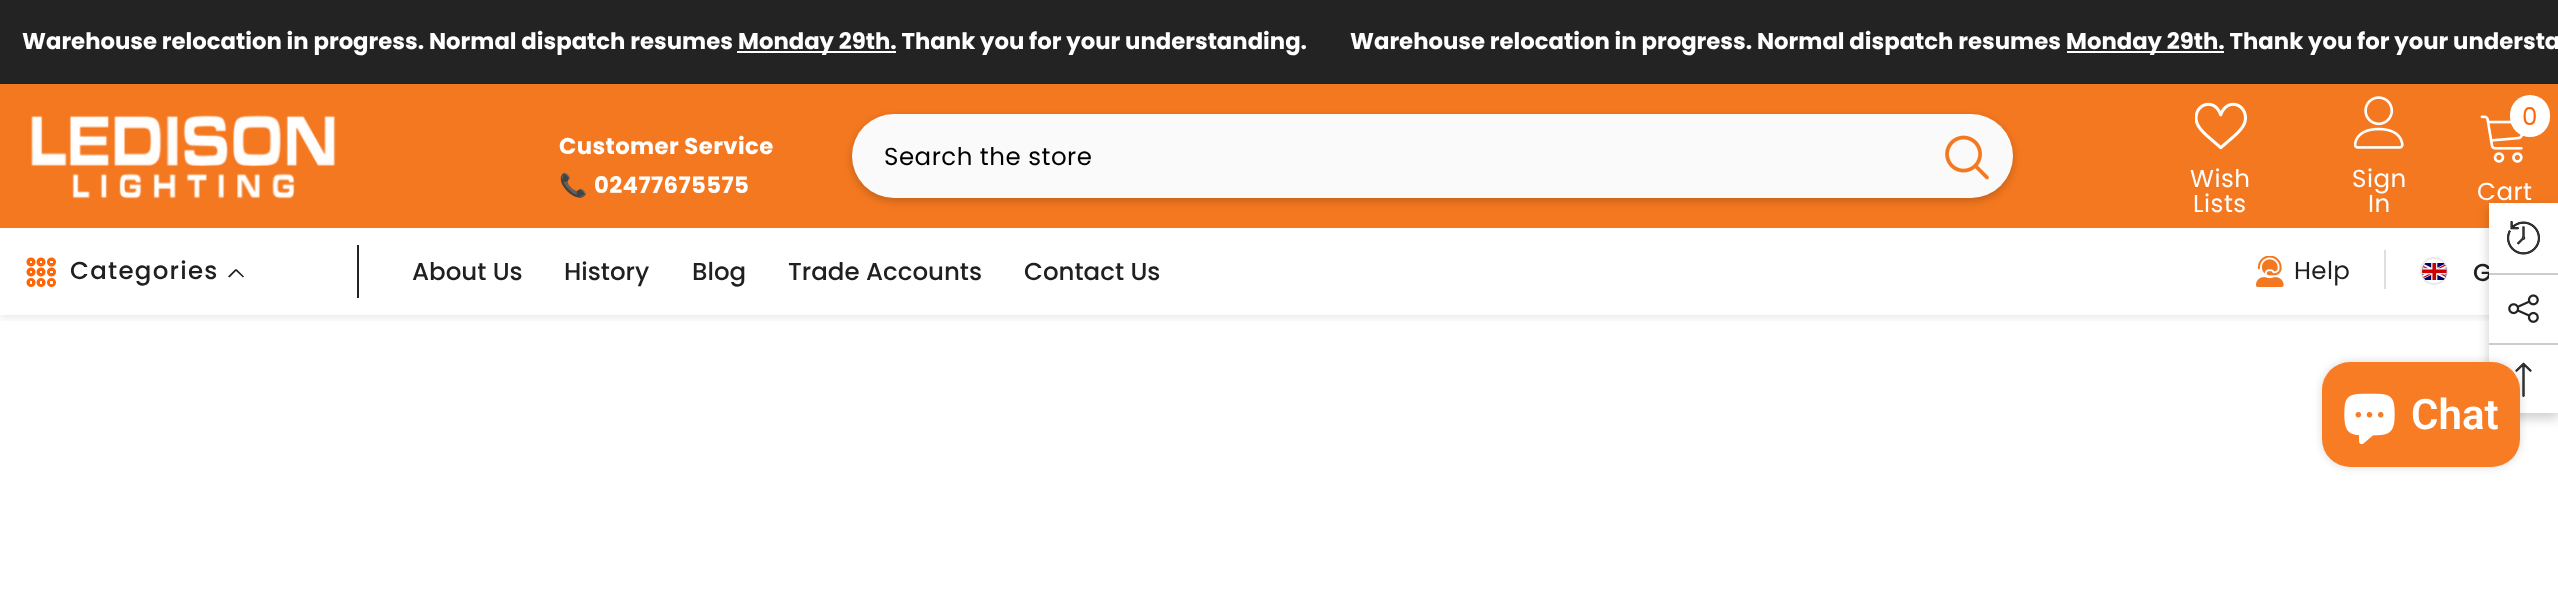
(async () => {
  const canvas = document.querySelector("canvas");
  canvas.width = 2558;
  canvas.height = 616;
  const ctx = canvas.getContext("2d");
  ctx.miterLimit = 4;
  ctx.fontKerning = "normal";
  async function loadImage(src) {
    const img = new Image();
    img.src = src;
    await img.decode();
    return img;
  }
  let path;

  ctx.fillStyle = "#ffffff";
  ctx.fillRect(0, 0, 2558, 616);
  for (const [x, y, w, h, color] of [
    [0, 0, 2558, 84, "#232323"],
    [737, 51, 159, 2, "#ffffff"],
    [2067, 51, 157, 2, "#ffffff"],
  ]) {
    ctx.fillStyle = color;
    ctx.fillRect(x, y, w, h);
  }
  ctx.save();
  ctx.beginPath();
  ctx.rect(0, 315, 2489, 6);
  ctx.clip();
  ctx.fillStyle = "rgba(0, 0, 0, 0.1)";
  ctx.filter = "blur(5px)";
  ctx.beginPath();
  ctx.rect(0, 229, 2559, 88);
  ctx.fill();
  ctx.filter = "none";
  ctx.restore();
  ctx.fillStyle = "#f47820";
  ctx.fillRect(0, 84, 2558, 144);
  ctx.drawImage(await loadImage("img/1.png"), 31, 115, 305, 84);
  ctx.fillStyle = "rgba(0, 0, 0, 0.2)";
  ctx.filter = "blur(4.5px)";
  ctx.beginPath();
  ctx.roundRect(852, 117, 1161, 84, 42);
  ctx.fill();
  ctx.filter = "none";
  ctx.fillStyle = "#fafafa";
  ctx.beginPath();
  ctx.roundRect(852, 114, 1161, 84, 42);
  ctx.fill();
  ctx.drawImage(await loadImage("img/2.png"), 1945, 135, 44, 45);
  ctx.drawImage(await loadImage("img/3.png"), 2480, 115, 44, 48);
  ctx.fillStyle = "#ffffff";
  ctx.beginPath();
  ctx.roundRect(2510, 95, 40, 42, 20);
  ctx.fill();
  ctx.drawImage(await loadImage("img/4.png"), 2195, 102, 52, 48);
  ctx.drawImage(await loadImage("img/5.png"), 2354, 96, 50, 53);
  ctx.drawImage(await loadImage("img/6.png"), 26, 257, 30, 30);
  ctx.fillStyle = "#202020";
  path = new Path2D("M228 276.5L235.5 269L236.5 270.5L229.5 277.5Z");
  ctx.fill(path);
  path = new Path2D("M243 277.5L235.5 270.5L236.5 269L244 276.5Z");
  ctx.fill(path);
  ctx.fillStyle = "#232323";
  ctx.fillRect(357, 245, 2, 53);
  ctx.drawImage(await loadImage("img/7.png"), 2255, 256, 29, 31);
  ctx.fillStyle = "#dedede";
  ctx.fillRect(2384, 250, 2, 39);
  ctx.beginPath();
  ctx.arc(2434, 271, 13, 0, Math.PI * 2);
  ctx.strokeStyle = "#e9e9e9";
  ctx.lineWidth = 2;
  ctx.stroke();
  ctx.drawImage(await loadImage("img/8.png"), 2422, 263, 25, 17);
  ctx.fillStyle = "rgba(0, 0, 0, 0.2)";
  ctx.filter = "blur(6px)";
  ctx.beginPath();
  ctx.rect(2489, 208, 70, 210);
  ctx.fill();
  ctx.filter = "none";
  ctx.font = "bold 22.75px Poppins";
  ctx.fillStyle = "#ffffff";
  for (const [text, x, y] of [
    ["Warehouse relocation in progress. Normal dispatch resumes", 22, 49],
    ["Monday 29th. Thank you for your understanding.", 738, 49],
    ["Warehouse relocation in progress. Normal dispatch resumes", 1350, 49],
    ["Monday 29th. Thank you for your understa", 2066, 49],
  ]) {
    ctx.fillText(text, x, y);
  }
  ctx.letterSpacing = "0.4px";
  ctx.fillText("Customer Service", 559, 154);
  ctx.font = "22.75px Noto Color Emoji";
  ctx.fillText("📞", 559, 193);
  ctx.font = "bold 22.75px Poppins";
  ctx.fillText("02477675575", 594, 193);
  ctx.letterSpacing = "0.5px";
  ctx.font = "24.5px Poppins";
  ctx.fillStyle = "#000000";
  ctx.fillText("Search the store", 884, 165);
  ctx.letterSpacing = "0px";
  ctx.fillStyle = "#fd6506";
  ctx.fillText("0", 2522, 125);
  ctx.letterSpacing = "0.5px";
  ctx.fillStyle = "#ffffff";
  for (const [text, x, y] of [
    ["Cart", 2477, 200],
    ["Wish", 2190, 187],
    ["Lists", 2193, 212],
    ["Sign", 2352, 187],
    ["In", 2368, 212],
  ]) {
    ctx.fillText(text, x, y);
  }
  ctx.letterSpacing = "1.25px";
  ctx.font = "500 24.5px Poppins";
  ctx.fillStyle = "#202020";
  ctx.fillText("Categories", 70, 279);
  ctx.letterSpacing = "0px";
  for (const [text, x, y] of [
    ["About Us", 412, 280],
    ["History", 564, 280],
    ["Blog", 692, 280],
    ["Trade Accounts", 788, 280],
    ["Contact Us", 1024, 280],
  ]) {
    ctx.fillText(text, x, y);
  }
  ctx.letterSpacing = "0.4px";
  ctx.font = "24.5px Poppins";
  ctx.fillText("Help", 2294, 279);
  ctx.font = "500 24.5px Poppins";
  ctx.fillText("G", 2473, 281);
  ctx.fillStyle = "#ffffff";
  ctx.fillRect(2489, 203, 69, 210);
  ctx.drawImage(await loadImage("img/10.png"), 2507, 221, 33, 34);
  ctx.fillStyle = "#cccccc";
  ctx.fillRect(2489, 273, 69, 2);
  ctx.drawImage(await loadImage("img/11.png"), 2508, 294, 31, 29);
  ctx.fillRect(2489, 343, 69, 2);
  ctx.drawImage(await loadImage("img/12.png"), 2515, 362, 17, 35);
  ctx.fillStyle = "rgba(0, 0, 0, 0.15)";
  ctx.filter = "blur(4.5px)";
  ctx.beginPath();
  ctx.roundRect(2322, 362, 198, 105, 28);
  ctx.fill();
  ctx.filter = "none";
  ctx.fillStyle = "#f87c24";
  ctx.beginPath();
  ctx.roundRect(2322, 362, 198, 105, 28);
  ctx.fill();
  ctx.letterSpacing = "0px";
  ctx.font = "600 42px Roboto";
  ctx.fillStyle = "#ffffff";
  ctx.fillText("Chat", 2411, 429);
  ctx.drawImage(await loadImage("img/9.png"), 2344, 393, 51, 52);
})();
